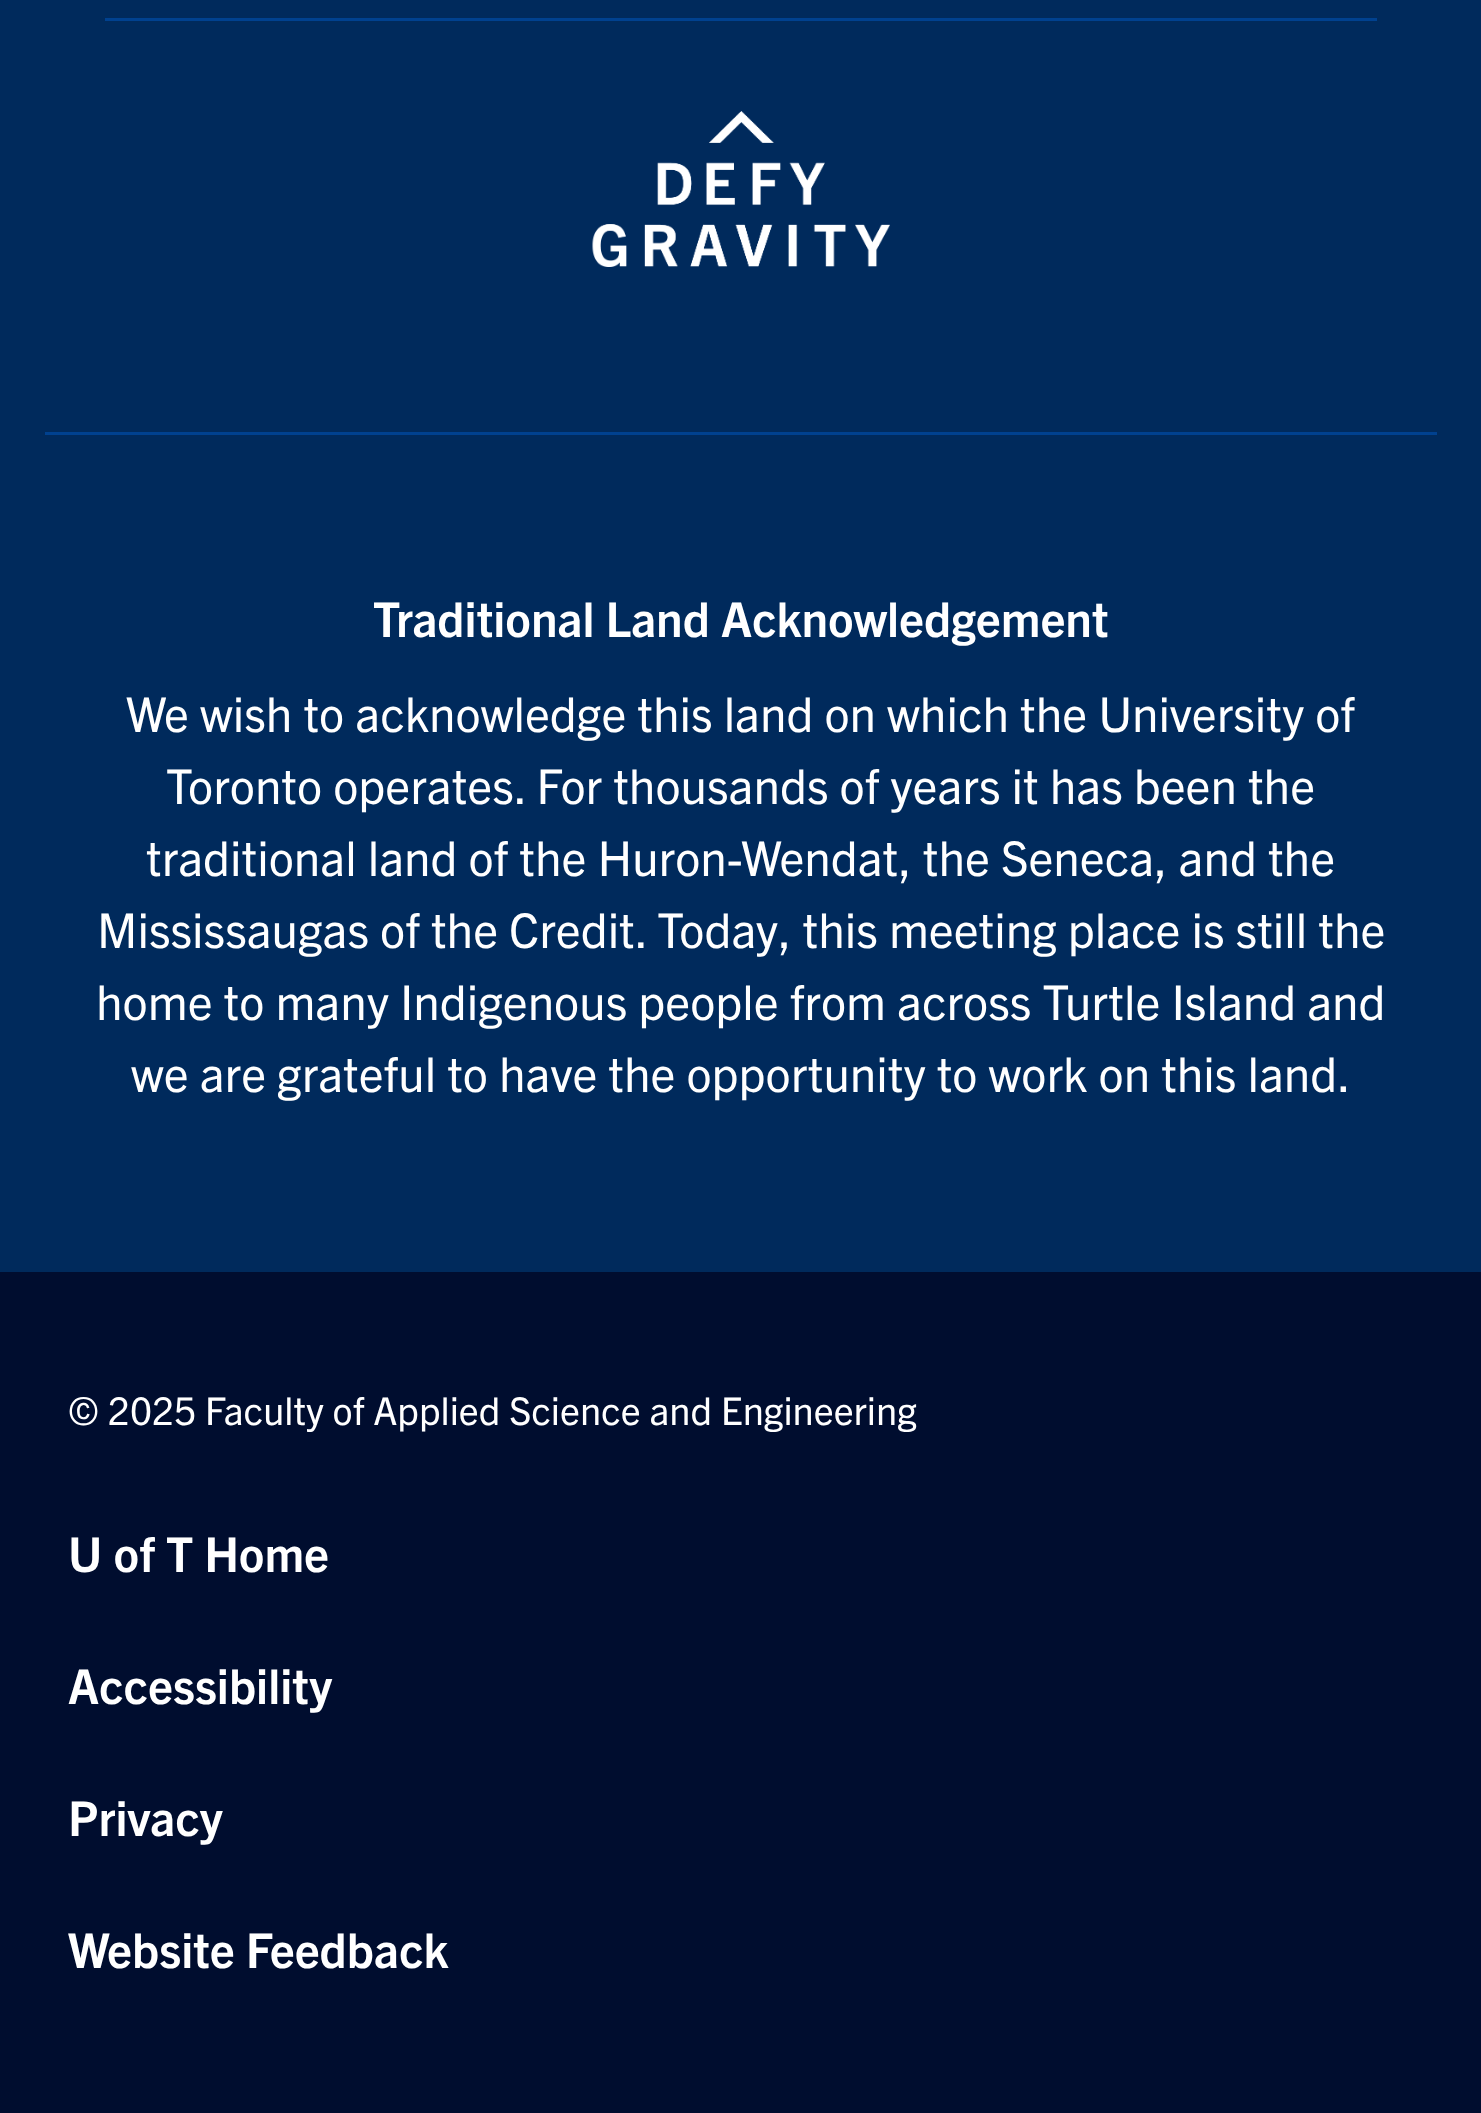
(async () => {
  const canvas = document.querySelector("canvas");
  canvas.width = 1481;
  canvas.height = 2113;
  const ctx = canvas.getContext("2d");
  ctx.miterLimit = 4;
  ctx.fontKerning = "normal";
  async function loadImage(src) {
    const img = new Image();
    img.src = src;
    await img.decode();
    return img;
  }

  ctx.fillStyle = "#002a5c";
  ctx.fillRect(0, 0, 1481, 2113);
  ctx.fillStyle = "#00418f";
  ctx.fillRect(105, 18, 1272, 3);
  ctx.drawImage(await loadImage("img/1.png"), 592, 111, 298, 156);
  ctx.fillRect(45, 432, 1392, 3);
  ctx.fillStyle = "#000d2f";
  ctx.fillRect(0, 1272, 1481, 841);
  ctx.font = "bold 48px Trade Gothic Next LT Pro";
  ctx.fillStyle = "#ffffff";
  ctx.fillText("Traditional Land Acknowledgement", 373, 637);
  ctx.font = "48px Trade Gothic Next LT Pro";
  for (const [text, x, y] of [
    ["We wish to acknowledge this land on which the University of", 126, 732],
    ["Toronto operates. For thousands of years it has been the", 166, 804],
    ["traditional land of the Huron-Wendat, the Seneca, and the", 146, 876],
    ["Mississaugas of the Credit. Today, this meeting place is still the", 97, 948],
    ["home to many Indigenous people from across Turtle Island and", 96, 1020],
    ["we are grateful to have the opportunity to work on this land.", 131, 1092],
  ]) {
    ctx.fillText(text, x, y);
  }
  ctx.font = "38.4px Trade Gothic Next LT Pro";
  ctx.fillText("© 2025 Faculty of Applied Science and Engineering", 68, 1425);
  ctx.font = "bold 48px Trade Gothic Next LT Pro";
  for (const [text, x, y] of [
    ["U of T Home", 68, 1572],
    ["Accessibility", 68, 1704],
    ["Privacy", 68, 1836],
    ["Website Feedback", 68, 1968],
  ]) {
    ctx.fillText(text, x, y);
  }
})();
